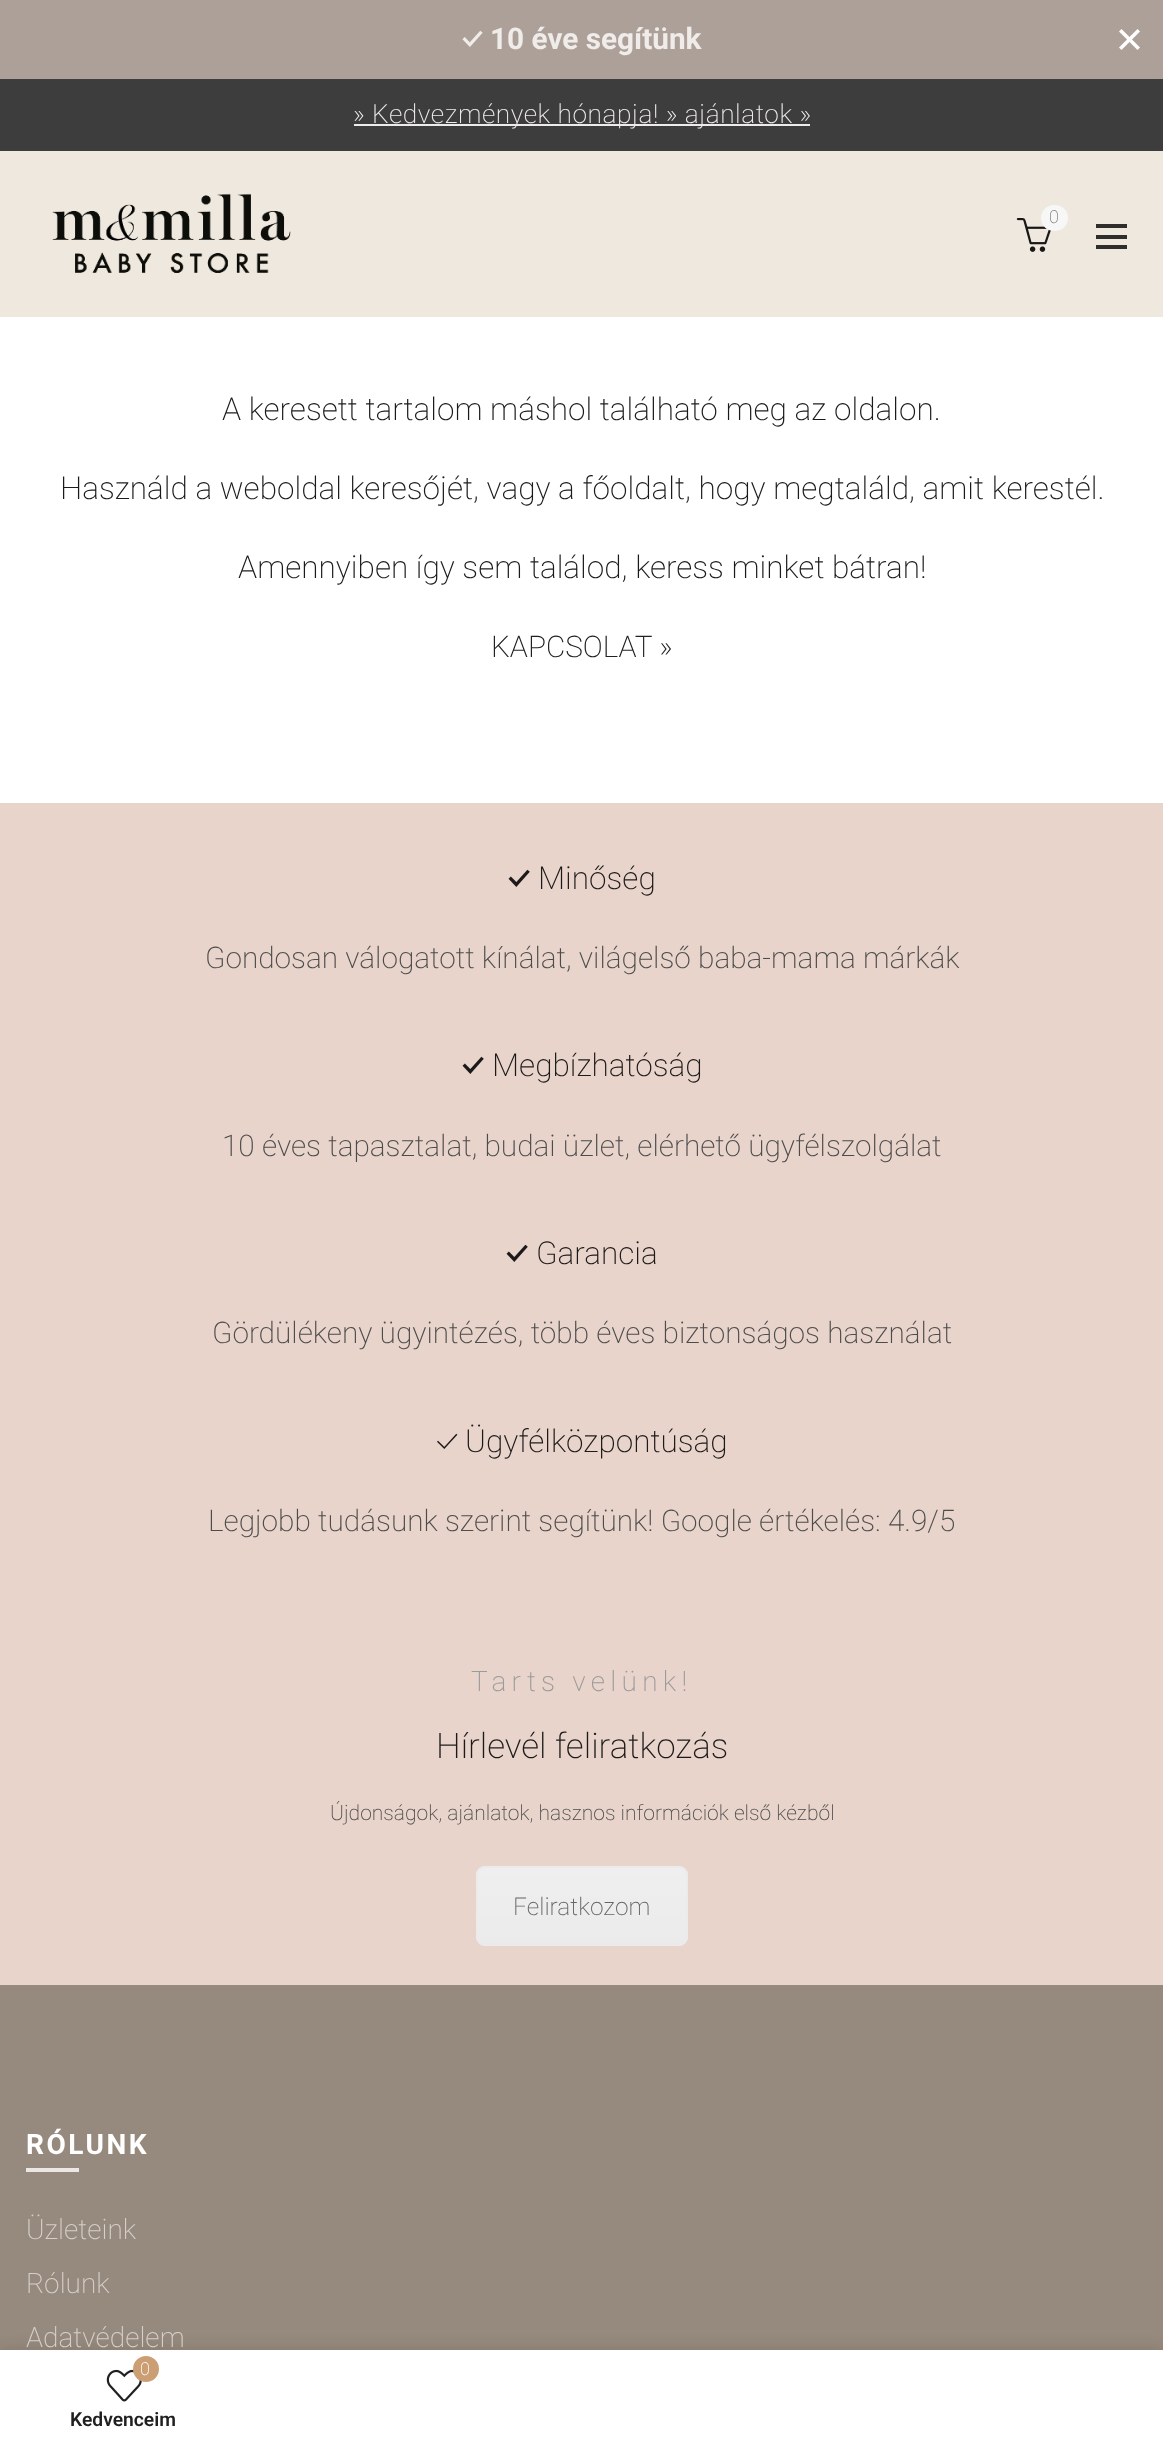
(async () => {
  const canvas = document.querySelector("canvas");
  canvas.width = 1163;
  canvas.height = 2445;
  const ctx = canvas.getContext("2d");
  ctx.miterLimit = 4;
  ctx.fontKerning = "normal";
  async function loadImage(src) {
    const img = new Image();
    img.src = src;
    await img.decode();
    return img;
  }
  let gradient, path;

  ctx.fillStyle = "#ffffff";
  ctx.fillRect(0, 0, 1163, 2445);
  ctx.fillStyle = "#ada098";
  ctx.fillRect(0, 0, 1163, 79);
  ctx.fillStyle = "#ffffff";
  path = new Path2D("M1121.5 29L1140 47.5L1137.5 50L1119 31.5Z");
  ctx.fill(path);
  path = new Path2D("M1119 47.5L1137.5 29L1140 31.5L1121.5 50Z");
  ctx.fill(path);
  for (const [x, y, w, h, color] of [
    [0, 79, 1163, 72, "#3d3d3d"],
    [354, 124, 456, 2, "#ececec"],
    [0, 151, 1163, 166, "#efe8de"],
  ]) {
    ctx.fillStyle = color;
    ctx.fillRect(x, y, w, h);
  }
  ctx.drawImage(await loadImage("img/1.png"), 52, 193, 239, 80);
  ctx.drawImage(await loadImage("img/2.png"), 1016, 218, 35, 34);
  ctx.fillStyle = "#f7f7f7";
  ctx.beginPath();
  ctx.roundRect(1041, 205, 27, 26, 13);
  ctx.fill();
  for (const [x, y, w, h, color] of [
    [1096, 235, 31, 4, "#302e2c"],
    [1096, 224, 31, 4, "#302e2c"],
    [1096, 245, 31, 4, "#302e2c"],
    [0, 803, 1163, 1182, "#e8d4ca"],
  ]) {
    ctx.fillStyle = color;
    ctx.fillRect(x, y, w, h);
  }
  ctx.fillStyle = "#ebebeb";
  ctx.beginPath();
  ctx.roundRect(476, 1866, 212, 80, 9);
  ctx.fill();
  ctx.save();
  ctx.beginPath();
  ctx.roundRect(476, 1866, 212, 80, 9);
  ctx.clip();
  gradient = ctx.createLinearGradient(582, 1867, 582, 1944);
  gradient.addColorStop(0, "rgba(255, 255, 255, 0.2)");
  gradient.addColorStop(1, "rgba(255, 255, 255, 0.01)");
  ctx.fillStyle = gradient;
  ctx.fillRect(476, 1867, 212, 72);
  ctx.restore();
  ctx.beginPath();
  ctx.roundRect(477, 1867, 210, 78, 8);
  ctx.strokeStyle = "#ebebeb";
  ctx.lineWidth = 2;
  ctx.stroke();
  ctx.fillStyle = "#96897d";
  ctx.fillRect(0, 1985, 1163, 365);
  ctx.fillStyle = "#eae7e5";
  ctx.fillRect(26, 2168, 53, 4);
  ctx.fillStyle = "rgba(0, 0, 0, 0.12)";
  ctx.filter = "blur(8px)";
  ctx.beginPath();
  ctx.rect(0, 2350, 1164, 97);
  ctx.fill();
  ctx.filter = "none";
  ctx.fillStyle = "#ffffff";
  ctx.fillRect(0, 2350, 1163, 95);
  ctx.drawImage(await loadImage("img/3.png"), 106, 2369, 36, 33);
  ctx.fillStyle = "#cc9e74";
  ctx.beginPath();
  ctx.arc(146, 2369, 13, 0, Math.PI * 2);
  ctx.fill();
  ctx.font = "bold 29.75px Ubuntu";
  ctx.fillStyle = "#efecea";
  ctx.fillText("✓", 462, 49);
  ctx.font = "bold 29.75px Roboto";
  ctx.fillText("10 éve segítünk", 490, 49);
  ctx.letterSpacing = "0.55px";
  ctx.font = "200 26.25px Roboto";
  ctx.fillText("» Kedvezmények hónapja! » ajánlatok »", 353, 123);
  ctx.letterSpacing = "0px";
  ctx.font = "200 18px Roboto";
  ctx.fillStyle = "#7e7e7e";
  ctx.fillText("0", 1049, 223);
  ctx.font = "200 31.5px Roboto";
  ctx.fillStyle = "#1b1919";
  for (const [text, x, y] of [
    ["A keresett tartalom máshol található meg az oldalon.", 222, 420],
    ["Használd a weboldal keresőjét, vagy a főoldalt, hogy megtaláld, amit kerestél.", 60, 499],
    ["Amennyiben így sem találod, keress minket bátran!", 238, 578],
  ]) {
    ctx.fillText(text, x, y);
  }
  ctx.font = "200 29.75px Roboto";
  ctx.fillStyle = "#202020";
  ctx.fillText("KAPCSOLAT »", 491, 657);
  ctx.font = "bold 31.5px Ubuntu";
  ctx.fillStyle = "#1b1919";
  ctx.fillText("✓", 508, 889);
  ctx.font = "200 31.5px Roboto";
  ctx.fillText("Minőség", 538, 889);
  ctx.font = "200 29.75px Roboto";
  ctx.fillStyle = "#4c4c4c";
  ctx.fillText("Gondosan válogatott kínálat, világelső baba-mama márkák", 205, 968);
  ctx.font = "bold 31.5px Ubuntu";
  ctx.fillStyle = "#1b1919";
  ctx.fillText("✓", 462, 1076);
  ctx.font = "200 31.5px Roboto";
  ctx.fillText("Megbízhatóság", 492, 1076);
  ctx.font = "200 29.75px Roboto";
  ctx.fillStyle = "#4c4c4c";
  ctx.fillText("10 éves tapasztalat, budai üzlet, elérhető ügyfélszolgálat", 222, 1156);
  ctx.font = "bold 31.5px Ubuntu";
  ctx.fillStyle = "#1b1919";
  ctx.fillText("✓", 506, 1264);
  ctx.font = "200 31.5px Roboto";
  ctx.fillText("Garancia", 536, 1264);
  ctx.font = "200 29.75px Roboto";
  ctx.fillStyle = "#4c4c4c";
  ctx.fillText("Gördülékeny ügyintézés, több éves biztonságos használat", 212, 1343);
  ctx.font = "200 31.5px Ubuntu";
  ctx.fillStyle = "#1b1919";
  ctx.fillText("✓", 436, 1452);
  ctx.font = "200 31.5px Roboto";
  ctx.fillText("Ügyfélközpontúság", 465, 1452);
  ctx.font = "200 29.75px Roboto";
  ctx.fillStyle = "#4c4c4c";
  ctx.fillText("Legjobb tudásunk szerint segítünk! Google értékelés: 4.9/5", 208, 1531);
  ctx.letterSpacing = "5.25px";
  ctx.font = "200 28px Roboto";
  ctx.fillStyle = "#9b9b9b";
  ctx.fillText("Tarts velünk!", 471, 1691);
  ctx.letterSpacing = "0px";
  ctx.font = "200 35px Roboto";
  ctx.fillStyle = "#1b1919";
  ctx.fillText("Hírlevél feliratkozás", 436, 1758);
  ctx.font = "200 21px Roboto";
  ctx.fillStyle = "#4c4c4c";
  ctx.fillText("Újdonságok, ajánlatok, hasznos információk első kézből", 330, 1820);
  ctx.font = "200 24.5px Roboto";
  ctx.fillStyle = "#666666";
  ctx.fillText("Feliratkozom", 513, 1915);
  ctx.letterSpacing = "2.5px";
  ctx.font = "bold 28px Roboto";
  ctx.fillStyle = "#ffffff";
  ctx.fillText("RÓLUNK", 26, 2154);
  ctx.letterSpacing = "0px";
  ctx.font = "200 28px Roboto";
  ctx.fillStyle = "#d5d0cb";
  for (const [text, x, y] of [
    ["Üzleteink", 26, 2239],
    ["Rólunk", 26, 2293],
    ["Adatvédelem", 26, 2347],
  ]) {
    ctx.fillText(text, x, y);
  }
  ctx.font = "200 18px Roboto";
  ctx.fillStyle = "#ffffff";
  ctx.fillText("0", 140, 2375);
  ctx.font = "600 19.25px Roboto";
  ctx.fillStyle = "#202020";
  ctx.fillText("Kedvenceim", 70, 2426);
})();
